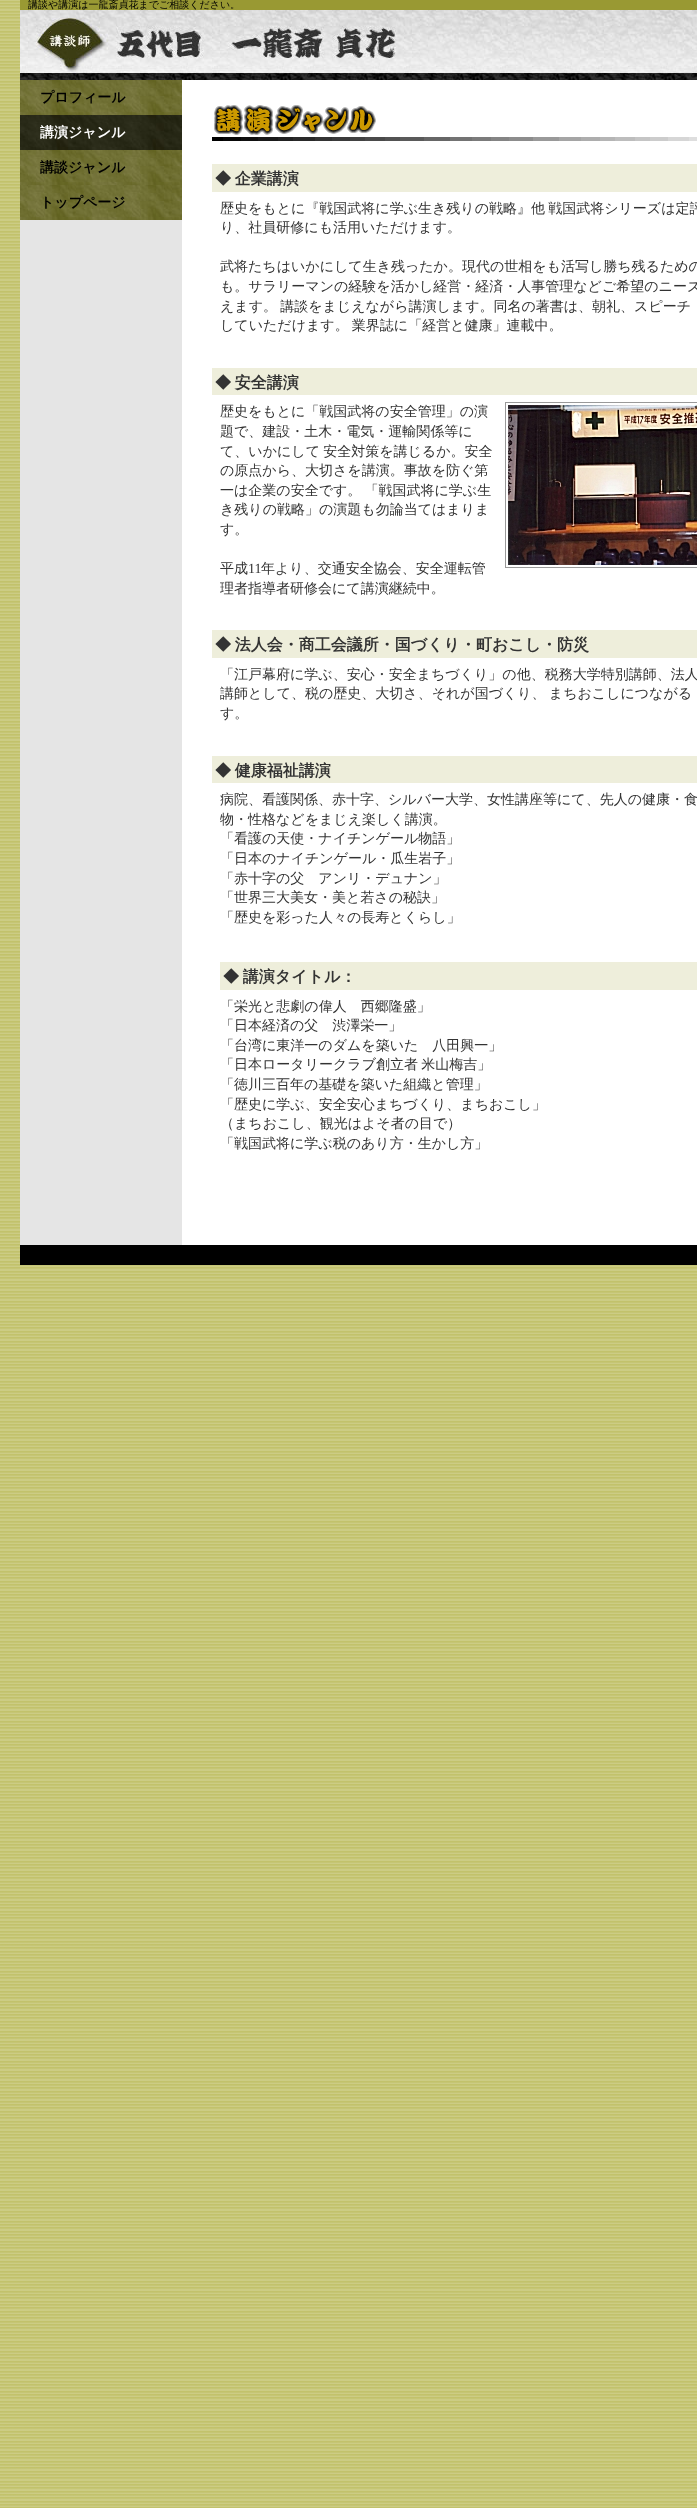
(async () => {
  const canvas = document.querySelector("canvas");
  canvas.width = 697;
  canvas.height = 2508;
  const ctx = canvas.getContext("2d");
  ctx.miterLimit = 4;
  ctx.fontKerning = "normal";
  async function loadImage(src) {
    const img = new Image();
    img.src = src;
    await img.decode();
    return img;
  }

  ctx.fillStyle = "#ffffff";
  ctx.fillRect(0, 0, 697, 2508);
  ctx.drawImage(await loadImage("img/1.png"), 0, 0, 697, 2508);
  ctx.fillStyle = "#e5e5e5";
  ctx.fillRect(20, 220, 162, 1025);
  ctx.fillStyle = "#999933";
  ctx.fillRect(20, 0, 677, 10);
  ctx.drawImage(await loadImage("img/2.png"), 20, 10, 677, 70);
  ctx.drawImage(await loadImage("img/3.png"), 20, 80, 162, 35);
  ctx.drawImage(await loadImage("img/4.png"), 20, 115, 162, 35);
  ctx.drawImage(await loadImage("img/3.png"), 20, 150, 162, 35);
  ctx.drawImage(await loadImage("img/3.png"), 20, 185, 162, 35);
  ctx.fillStyle = "#ffffff";
  ctx.fillRect(182, 80, 515, 1165);
  ctx.drawImage(await loadImage("img/5.png"), 212, 105, 485, 36);
  ctx.fillStyle = "#eeeedb";
  ctx.fillRect(212, 164, 485, 28);
  ctx.fillRect(212, 368, 485, 27);
  ctx.strokeStyle = "#999999";
  ctx.strokeRect(505.5, 402.5, 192, 165);
  ctx.drawImage(await loadImage("img/6.png"), 508, 405, 189, 160);
  for (const [x, y, w, h, color] of [
    [212, 630, 485, 28, "#eeeedb"],
    [212, 756, 485, 27, "#eeeedb"],
    [220, 962, 477, 28, "#eeeedb"],
    [20, 1245, 677, 20, "#000000"],
  ]) {
    ctx.fillStyle = color;
    ctx.fillRect(x, y, w, h);
  }
  ctx.font = "500 10px WenQuanYi Zen Hei";
  ctx.fillText("講談や講演は一龍斎貞花までご相談ください。", 28, 8);
  ctx.font = "bold 14px WenQuanYi Zen Hei";
  ctx.fillText("プロフィール", 40, 102);
  ctx.fillStyle = "#ffffff";
  ctx.fillText("講演ジャンル", 40, 137);
  ctx.fillStyle = "#000000";
  ctx.fillText("講談ジャンル", 40, 172);
  ctx.fillText("トップページ", 40, 207);
  ctx.wordSpacing = "-1px";
  ctx.font = "bold 16px WenQuanYi Zen Hei";
  ctx.fillStyle = "#333333";
  ctx.fillText("◆ 企業講演", 215, 184);
  ctx.font = "500 14px WenQuanYi Zen Hei";
  ctx.fillText("歴史をもとに『戦国武将に学ぶ生き残りの戦略』他 戦国武将シリーズは定評", 220, 213);
  ctx.wordSpacing = "0px";
  for (const [text, x, y] of [
    ["り、社員研修にも活用いただけます。", 220, 232],
    ["武将たちはいかにして生き残ったか。現代の世相をも活写し勝ち残るための", 220, 271],
    ["も。サラリーマンの経験を活かし経営・経済・人事管理などご希望のニーズ", 220, 291],
  ]) {
    ctx.fillText(text, x, y);
  }
  ctx.wordSpacing = "-1px";
  ctx.fillText("えます。 講談をまじえながら講演します。同名の著書は、朝礼、スピーチ", 220, 311);
  ctx.fillText("していただけます。 業界誌に「経営と健康」連載中。", 220, 330);
  ctx.font = "bold 16px WenQuanYi Zen Hei";
  ctx.fillText("◆ 安全講演", 215, 388);
  ctx.wordSpacing = "0px";
  ctx.font = "500 14px WenQuanYi Zen Hei";
  ctx.fillText("歴史をもとに「戦国武将の安全管理」の演", 220, 416);
  ctx.fillText("題で、建設・土木・電気・運輸関係等に", 220, 436);
  ctx.wordSpacing = "-1px";
  ctx.fillText("て、いかにして 安全対策を講じるか。安全", 220, 456);
  ctx.wordSpacing = "0px";
  ctx.fillText("の原点から、大切さを講演。事故を防ぐ第", 220, 475);
  ctx.wordSpacing = "-1px";
  ctx.fillText("一は企業の安全です。 「戦国武将に学ぶ生", 220, 495);
  ctx.wordSpacing = "0px";
  for (const [text, x, y] of [
    ["き残りの戦略」の演題も勿論当てはまりま", 220, 514],
    ["す。", 220, 534],
    ["平成", 220, 573],
  ]) {
    ctx.fillText(text, x, y);
  }
  ctx.font = "14px Liberation Serif";
  ctx.fillText("11", 248, 573);
  ctx.font = "500 14px WenQuanYi Zen Hei";
  ctx.fillText("年より、交通安全協会、安全運転管", 261, 573);
  ctx.fillText("理者指導者研修会にて講演継続中。", 220, 593);
  ctx.wordSpacing = "-1px";
  ctx.font = "bold 16px WenQuanYi Zen Hei";
  ctx.fillText("◆ 法人会・商工会議所・国づくり・町おこし・防災", 215, 650);
  ctx.wordSpacing = "0px";
  ctx.font = "500 14px WenQuanYi Zen Hei";
  ctx.fillText("「江戸幕府に学ぶ、安心・安全まちづくり」の他、税務大学特別講師、法人", 220, 679);
  ctx.wordSpacing = "-1px";
  ctx.fillText("講師として、税の歴史、大切さ、それが国づくり、 まちおこしにつながる", 220, 698);
  ctx.wordSpacing = "0px";
  ctx.fillText("す。", 220, 718);
  ctx.wordSpacing = "-1px";
  ctx.font = "bold 16px WenQuanYi Zen Hei";
  ctx.fillText("◆ 健康福祉講演", 215, 776);
  ctx.wordSpacing = "0px";
  ctx.font = "500 14px WenQuanYi Zen Hei";
  for (const [text, x, y] of [
    ["病院、看護関係、赤十字、シルバー大学、女性講座等にて、先人の健康・食", 220, 804],
    ["物・性格などをまじえ楽しく講演。", 220, 824],
    ["「看護の天使・ナイチンゲール物語」", 220, 843],
    ["「日本のナイチンゲール・瓜生岩子」", 220, 863],
    ["「赤十字の父　アンリ・デュナン」", 220, 883],
    ["「世界三大美女・美と若さの秘訣」", 220, 902],
    ["「歴史を彩った人々の長寿とくらし」", 220, 922],
  ]) {
    ctx.fillText(text, x, y);
  }
  ctx.wordSpacing = "-1px";
  ctx.font = "bold 16px WenQuanYi Zen Hei";
  ctx.fillText("◆ 講演タイトル：", 223, 982);
  ctx.wordSpacing = "0px";
  ctx.font = "500 14px WenQuanYi Zen Hei";
  for (const [text, x, y] of [
    ["「栄光と悲劇の偉人　西郷隆盛」", 220, 1011],
    ["「日本経済の父　渋澤栄一」", 220, 1030],
    ["「台湾に東洋一のダムを築いた　八田興一」", 220, 1050],
  ]) {
    ctx.fillText(text, x, y);
  }
  ctx.wordSpacing = "-1px";
  ctx.fillText("「日本ロータリークラブ創立者 米山梅吉」", 220, 1069);
  ctx.wordSpacing = "0px";
  for (const [text, x, y] of [
    ["「徳川三百年の基礎を築いた組織と管理」", 220, 1089],
    ["「歴史に学ぶ、安全安心まちづくり、まちおこし」", 220, 1109],
    ["（まちおこし、観光はよそ者の目で）", 220, 1128],
    ["「戦国武将に学ぶ税のあり方・生かし方」", 220, 1148],
  ]) {
    ctx.fillText(text, x, y);
  }
})();
